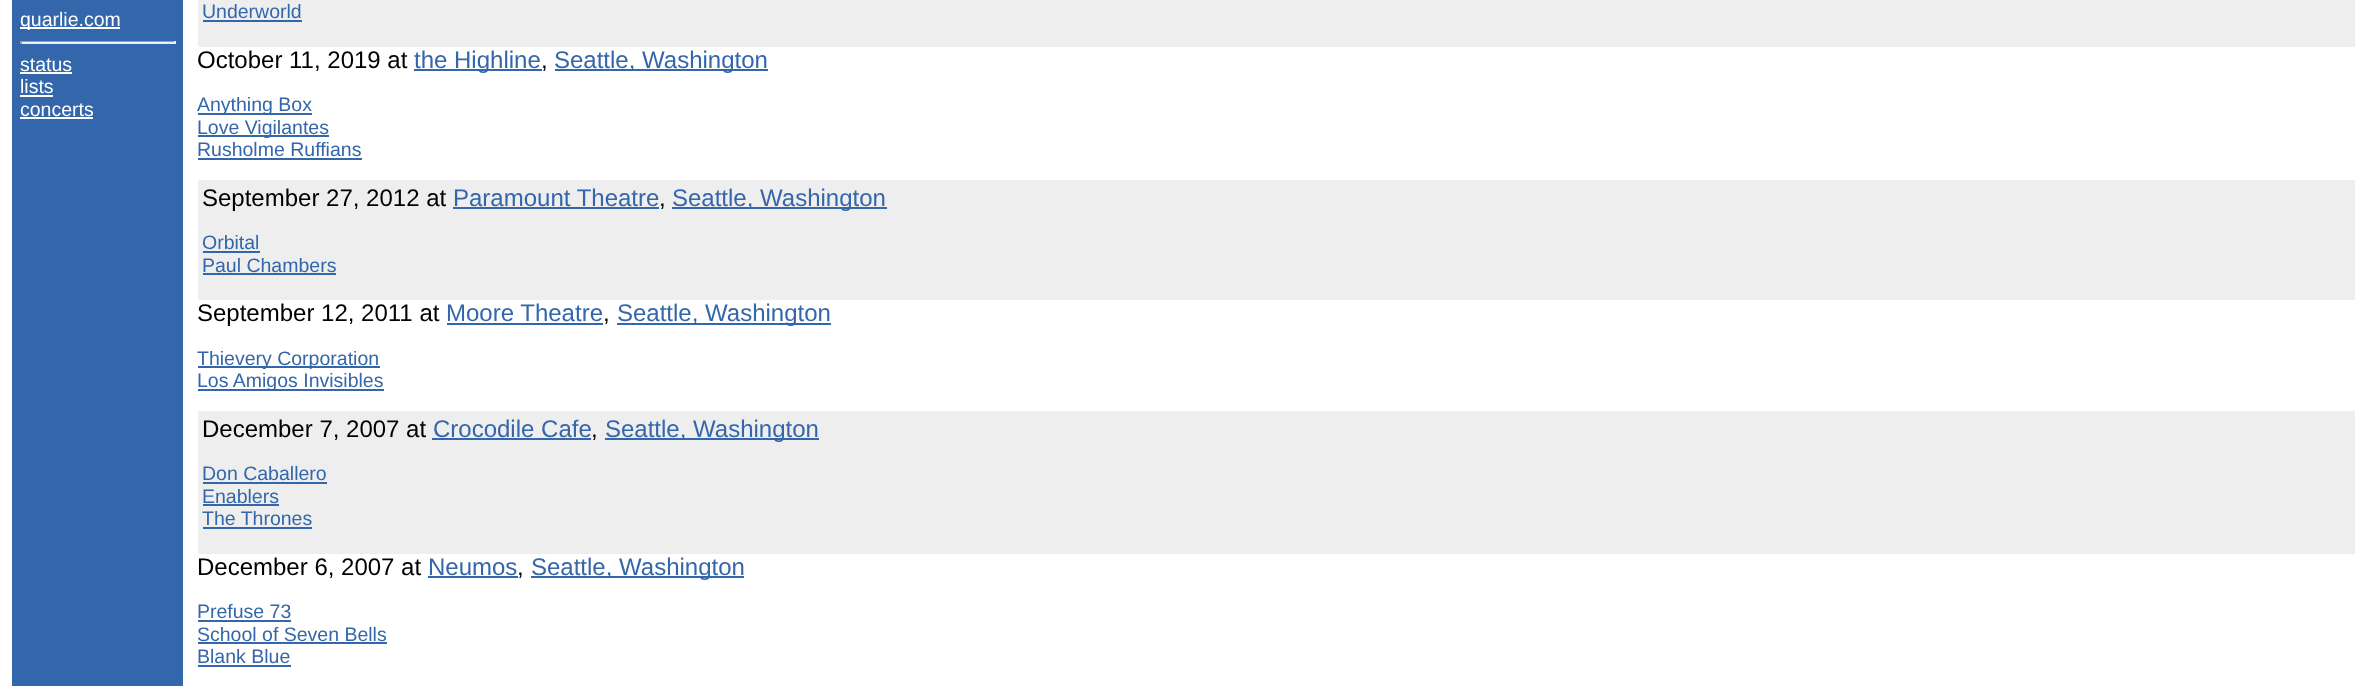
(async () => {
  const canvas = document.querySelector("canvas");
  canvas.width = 2358;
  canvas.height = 686;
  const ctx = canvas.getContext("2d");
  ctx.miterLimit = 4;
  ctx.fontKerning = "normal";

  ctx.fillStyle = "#ffffff";
  ctx.fillRect(0, 0, 2358, 686);
  for (const [x, y, w, h, color] of [
    [12, 0, 171, 686, "#3366aa"],
    [20, 27, 100, 2, "#ffffff"],
    [20, 41, 156, 1, "#9f9f9f"],
    [174, 41, 2, 3, "#eeeeee"],
    [20, 42, 156, 2, "#eeeeee"],
    [20, 41, 2, 3, "#9f9f9f"],
    [20, 72, 52, 2, "#ffffff"],
    [20, 95, 33, 2, "#ffffff"],
    [20, 117, 73, 2, "#ffffff"],
    [198, 0, 2157, 47, "#eeeeee"],
    [203, 20, 99, 2, "#3366aa"],
    [414, 69, 128, 2, "#3366aa"],
    [555, 69, 213, 2, "#3366aa"],
    [198, 113, 114, 2, "#3366aa"],
    [198, 135, 131, 2, "#3366aa"],
    [198, 158, 164, 2, "#3366aa"],
    [198, 180, 2157, 120, "#eeeeee"],
    [453, 207, 206, 2, "#3366aa"],
    [672, 207, 215, 2, "#3366aa"],
    [203, 251, 57, 2, "#3366aa"],
    [203, 273, 133, 2, "#3366aa"],
    [447, 323, 156, 2, "#3366aa"],
    [617, 323, 214, 2, "#3366aa"],
    [198, 366, 182, 2, "#3366aa"],
    [198, 389, 186, 2, "#3366aa"],
    [198, 411, 2157, 143, "#eeeeee"],
    [432, 438, 159, 2, "#3366aa"],
    [605, 438, 214, 2, "#3366aa"],
    [203, 482, 124, 2, "#3366aa"],
    [203, 504, 76, 2, "#3366aa"],
    [203, 527, 109, 2, "#3366aa"],
    [428, 576, 90, 2, "#3366aa"],
    [531, 576, 213, 2, "#3366aa"],
    [198, 620, 93, 2, "#3366aa"],
    [198, 642, 189, 2, "#3366aa"],
    [198, 665, 93, 2, "#3366aa"],
  ]) {
    ctx.fillStyle = color;
    ctx.fillRect(x, y, w, h);
  }
  ctx.font = "19.5px Liberation Sans";
  ctx.fillStyle = "#ffffff";
  for (const [text, x, y] of [
    ["quarlie.com", 20, 26],
    ["status", 20, 71],
    ["lists", 20, 93],
    ["concerts", 20, 116],
  ]) {
    ctx.fillText(text, x, y);
  }
  ctx.fillStyle = "#3366aa";
  ctx.fillText("Underworld", 202, 18);
  ctx.font = "24px Liberation Sans";
  ctx.fillStyle = "#000000";
  ctx.fillText("October 11, 2019 at", 197, 68);
  ctx.fillStyle = "#3366aa";
  ctx.fillText("the Highline", 414, 68);
  ctx.fillStyle = "#000000";
  ctx.fillText(",", 541, 68);
  ctx.fillStyle = "#3366aa";
  ctx.fillText("Seattle, Washington", 554, 68);
  ctx.font = "19.5px Liberation Sans";
  for (const [text, x, y] of [
    ["Anything Box", 197, 111],
    ["Love Vigilantes", 197, 134],
    ["Rusholme Ruffians", 197, 156],
  ]) {
    ctx.fillText(text, x, y);
  }
  ctx.font = "24px Liberation Sans";
  ctx.fillStyle = "#000000";
  ctx.fillText("September 27, 2012 at", 202, 206);
  ctx.fillStyle = "#3366aa";
  ctx.fillText("Paramount Theatre", 453, 206);
  ctx.fillStyle = "#000000";
  ctx.fillText(",", 659, 206);
  ctx.fillStyle = "#3366aa";
  ctx.fillText("Seattle, Washington", 672, 206);
  ctx.font = "19.5px Liberation Sans";
  ctx.fillText("Orbital", 202, 249);
  ctx.fillText("Paul Chambers", 202, 272);
  ctx.font = "24px Liberation Sans";
  ctx.fillStyle = "#000000";
  ctx.fillText("September 12, 2011 at", 197, 321);
  ctx.fillStyle = "#3366aa";
  ctx.fillText("Moore Theatre", 446, 321);
  ctx.fillStyle = "#000000";
  ctx.fillText(",", 603, 321);
  ctx.fillStyle = "#3366aa";
  ctx.fillText("Seattle, Washington", 617, 321);
  ctx.font = "19.5px Liberation Sans";
  ctx.fillText("Thievery Corporation", 197, 365);
  ctx.fillText("Los Amigos Invisibles", 197, 387);
  ctx.font = "24px Liberation Sans";
  ctx.fillStyle = "#000000";
  ctx.fillText("December 7, 2007 at", 202, 437);
  ctx.fillStyle = "#3366aa";
  ctx.fillText("Crocodile Cafe", 433, 437);
  ctx.fillStyle = "#000000";
  ctx.fillText(",", 591, 437);
  ctx.fillStyle = "#3366aa";
  ctx.fillText("Seattle, Washington", 605, 437);
  ctx.font = "19.5px Liberation Sans";
  for (const [text, x, y] of [
    ["Don Caballero", 202, 480],
    ["Enablers", 202, 503],
    ["The Thrones", 202, 525],
  ]) {
    ctx.fillText(text, x, y);
  }
  ctx.font = "24px Liberation Sans";
  ctx.fillStyle = "#000000";
  ctx.fillText("December 6, 2007 at", 197, 575);
  ctx.fillStyle = "#3366aa";
  ctx.fillText("Neumos", 428, 575);
  ctx.fillStyle = "#000000";
  ctx.fillText(",", 517, 575);
  ctx.fillStyle = "#3366aa";
  ctx.fillText("Seattle, Washington", 531, 575);
  ctx.font = "19.5px Liberation Sans";
  for (const [text, x, y] of [
    ["Prefuse 73", 197, 618],
    ["School of Seven Bells", 197, 641],
    ["Blank Blue", 197, 663],
  ]) {
    ctx.fillText(text, x, y);
  }
})();
